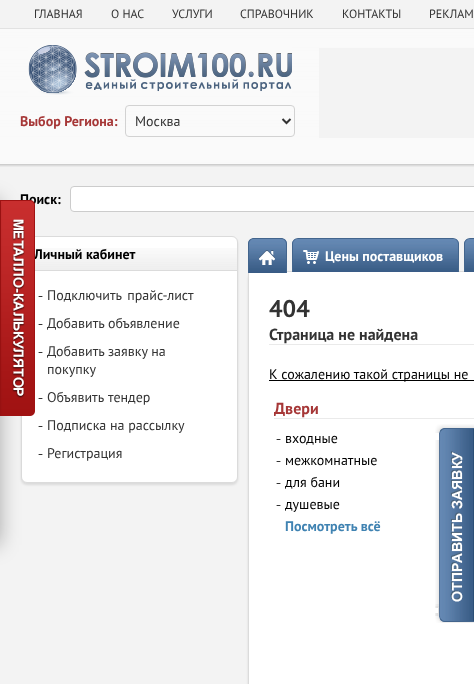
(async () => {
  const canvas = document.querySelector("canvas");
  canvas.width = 474;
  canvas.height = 684;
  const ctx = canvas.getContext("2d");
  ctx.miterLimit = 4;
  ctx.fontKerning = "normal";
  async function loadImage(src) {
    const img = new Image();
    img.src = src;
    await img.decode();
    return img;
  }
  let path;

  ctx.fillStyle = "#f3f3f3";
  ctx.fillRect(0, 0, 474, 684);
  ctx.drawImage(await loadImage("img/1.png"), 0, 28, 474, 139);
  ctx.fillStyle = "rgba(0, 0, 0, 0.1)";
  ctx.filter = "blur(1px)";
  ctx.beginPath();
  ctx.roundRect(21, 238, 217, 247, 6);
  ctx.fill();
  ctx.filter = "none";
  ctx.fillStyle = "#ffffff";
  ctx.beginPath();
  ctx.roundRect(21.5, 236.5, 216, 246, 5.5);
  ctx.fill();
  ctx.strokeStyle = "#dbdbdb";
  ctx.stroke();
  ctx.fillStyle = "rgba(0, 0, 0, 0.3)";
  ctx.filter = "blur(10px)";
  ctx.beginPath();
  ctx.rect(-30, 200, 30, 345);
  ctx.fill();
  ctx.filter = "none";
  ctx.drawImage(await loadImage("img/3.png"), 28, 45, 264, 50);
  ctx.beginPath();
  ctx.roundRect(125.5, 105.5, 169, 31, 3.5);
  ctx.strokeStyle = "#d2d2d2";
  ctx.stroke();
  path = new Path2D("M282.5 119L286.5 123L290.5 119");
  ctx.strokeStyle = "#333333";
  ctx.lineWidth = 2;
  ctx.stroke(path);
  ctx.fillStyle = "#f3f3f3";
  ctx.fillRect(319, 48, 155, 90);
  ctx.fillStyle = "#ffffff";
  ctx.beginPath();
  ctx.roundRect(70.5, 186.5, 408, 25, 3.5);
  ctx.fill();
  ctx.strokeStyle = "#cccccc";
  ctx.lineWidth = 1;
  ctx.stroke();
  ctx.drawImage(await loadImage("img/4.png"), 35, 248, 202, 22);
  ctx.fillStyle = "#dbdbdb";
  ctx.fillRect(35, 270, 202, 1);
  ctx.drawImage(await loadImage("img/5.png"), 38, 296, 5, 1);
  ctx.drawImage(await loadImage("img/5.png"), 38, 324, 5, 1);
  ctx.drawImage(await loadImage("img/5.png"), 38, 352, 5, 1);
  ctx.drawImage(await loadImage("img/5.png"), 38, 398, 5, 1);
  ctx.drawImage(await loadImage("img/5.png"), 38, 426, 5, 1);
  ctx.drawImage(await loadImage("img/5.png"), 38, 454, 5, 1);
  ctx.fillStyle = "rgba(0, 0, 0, 0.1)";
  ctx.filter = "blur(1px)";
  ctx.beginPath();
  ctx.roundRect(248, 273, 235, 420, 6);
  ctx.fill();
  ctx.filter = "none";
  ctx.fillStyle = "#ffffff";
  ctx.beginPath();
  ctx.rect(248.5, 271.5, 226, 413);
  ctx.fill();
  ctx.strokeStyle = "#dbdbdb";
  ctx.stroke();
  ctx.drawImage(await loadImage("img/6.png"), 248, 239, 39, 34);
  ctx.fillStyle = "#43658d";
  path = new Path2D("M254 238H281C284.5 238 287 240.5 287 244V273H248V244C248 240.5 250.5 238 254 238ZM254 239H281C284 239 286 241 286 244V273H249V244C249 241 251 239 254 239Z");
  ctx.fill(path, "evenodd");
  ctx.drawImage(await loadImage("img/7.png"), 259, 250, 16, 15);
  ctx.drawImage(await loadImage("img/8.png"), 292, 239, 167, 33);
  path = new Path2D("M298 238H453C456 238 459 241 459 244V272H292V244C292 241 295 238 298 238ZM298 239H453C456 239 458 241 458 244V272H293V244C293 241 295 239 298 239Z");
  ctx.fill(path, "evenodd");
  ctx.drawImage(await loadImage("img/9.png"), 303, 250, 16, 14);
  ctx.drawImage(await loadImage("img/10.png"), 464, 239, 10, 33);
  path = new Path2D("M470 238H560C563 238 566 241 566 244V272H464V244C464 241 467 238 470 238ZM470 239H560C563 239 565 241 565 244V272H465V244C465 241 467 239 470 239Z");
  ctx.fill(path, "evenodd");
  for (const [x, y, w, h, color] of [
    [269, 344, 205, 1, "#eaeaea"],
    [269, 380, 205, 1, "#000000"],
    [274, 418, 200, 1, "#eaeaea"],
  ]) {
    ctx.fillStyle = color;
    ctx.fillRect(x, y, w, h);
  }
  ctx.drawImage(await loadImage("img/5.png"), 276, 439, 5, 1);
  ctx.drawImage(await loadImage("img/5.png"), 276, 461, 5, 1);
  ctx.drawImage(await loadImage("img/5.png"), 276, 483, 5, 1);
  ctx.drawImage(await loadImage("img/5.png"), 276, 505, 5, 1);
  ctx.drawImage(await loadImage("img/11.png"), 435, 424, 39, 199);
  ctx.font = "12px PT Sans";
  ctx.fillStyle = "#333333";
  for (const [text, x, y] of [
    ["ГЛАВНАЯ", 34, 18],
    ["О НАС", 111, 18],
    ["УСЛУГИ", 172, 18],
    ["СПРАВОЧНИК", 240, 18],
    ["КОНТАКТЫ", 342, 18],
    ["РЕКЛАМ", 429, 18],
  ]) {
    ctx.fillText(text, x, y);
  }
  ctx.font = "bold 14px PT Sans";
  ctx.fillStyle = "#a63737";
  ctx.fillText("Выбор Региона:", 20, 126);
  ctx.font = "14px PT Sans";
  ctx.fillStyle = "#333333";
  ctx.fillText("Москва", 135, 126);
  ctx.font = "bold 14px PT Sans";
  ctx.fillStyle = "#000000";
  ctx.fillText("Поиск:", 20, 204);
  ctx.fillText("Личный кабинет", 34, 259);
  ctx.drawImage(await loadImage("img/2.png"), 0, 200, 35, 216);
  ctx.wordSpacing = "2px";
  ctx.font = "14px PT Sans";
  ctx.fillStyle = "#333333";
  ctx.fillText("Подключить прайс-лист", 47, 300);
  ctx.wordSpacing = "0px";
  for (const [text, x, y] of [
    ["Добавить объявление", 47, 328],
    ["Добавить заявку на", 47, 356],
    ["покупку", 47, 374],
  ]) {
    ctx.fillText(text, x, y);
  }
  ctx.wordSpacing = "1px";
  ctx.fillText("Объявить тендер", 47, 402);
  ctx.wordSpacing = "0px";
  ctx.fillText("Подписка на рассылку", 47, 430);
  ctx.fillText("Регистрация", 47, 458);
  ctx.font = "bold 14px PT Sans";
  ctx.fillStyle = "#ffffff";
  ctx.fillText("Цены поставщиков", 325, 261);
  ctx.font = "bold 24px PT Sans";
  ctx.fillStyle = "#333333";
  ctx.fillText("404", 269, 317);
  ctx.font = "bold 16px PT Sans";
  ctx.fillText("Страница не найдена", 269, 340);
  ctx.font = "14px PT Sans";
  ctx.fillStyle = "#000000";
  ctx.fillText("К сожалению такой страницы не", 269, 379);
  ctx.font = "bold 16px PT Sans";
  ctx.fillStyle = "#a63737";
  ctx.fillText("Двери", 274, 414);
  ctx.font = "14px PT Sans";
  ctx.fillStyle = "#000000";
  for (const [text, x, y] of [
    ["входные", 285, 443],
    ["межкомнатные", 285, 465],
    ["для бани", 285, 487],
    ["душевые", 285, 509],
  ]) {
    ctx.fillText(text, x, y);
  }
  ctx.font = "bold 14px PT Sans";
  ctx.fillStyle = "#4083b2";
  ctx.fillText("Посмотреть всё", 285, 531);
})();
